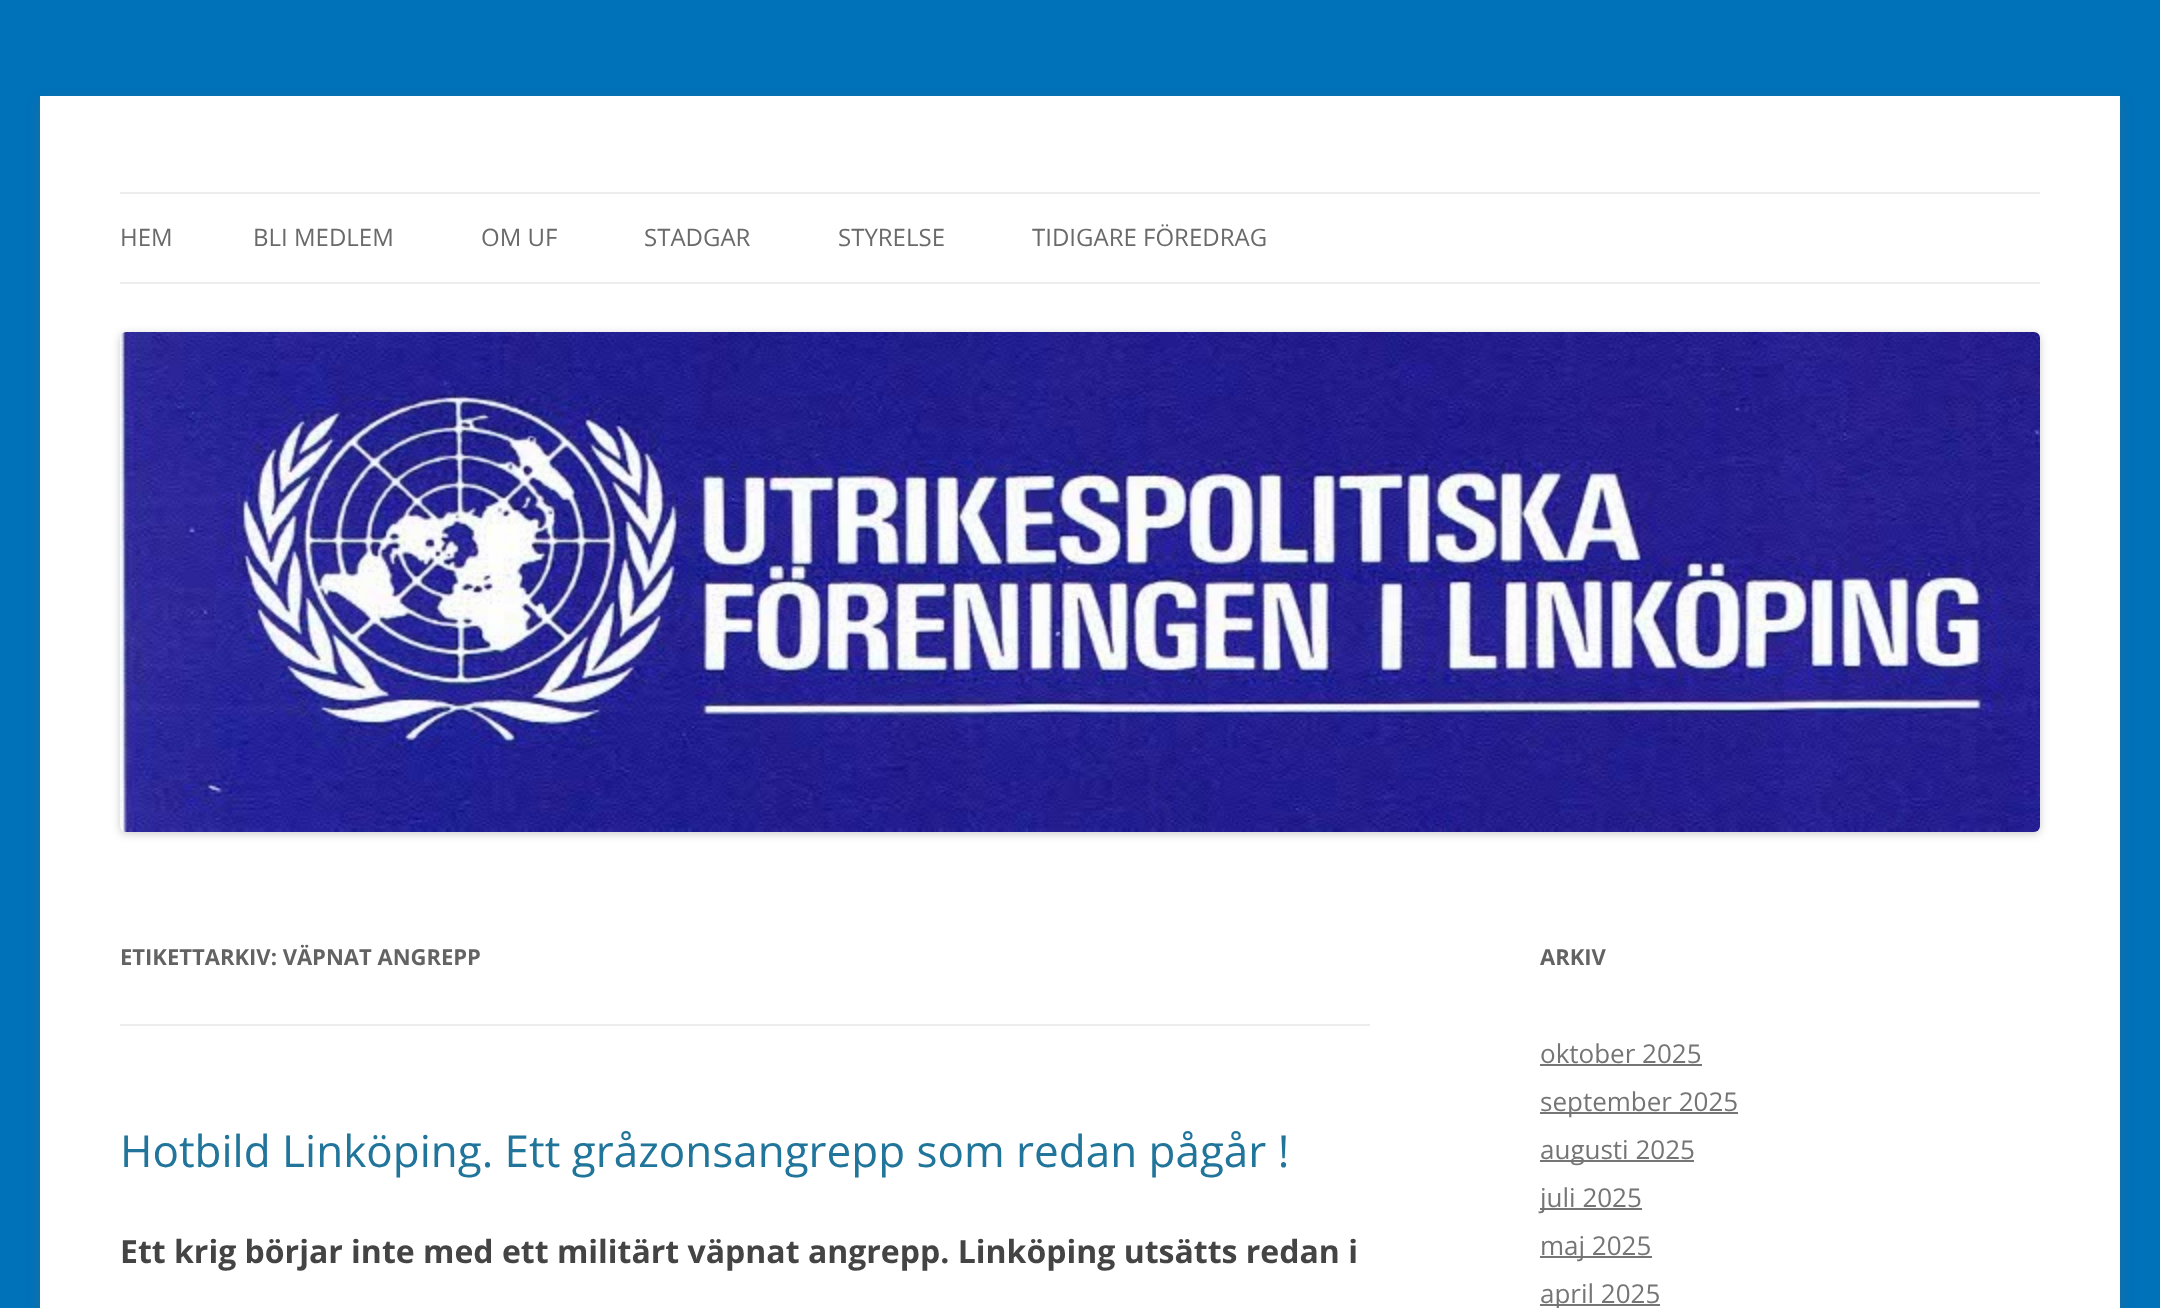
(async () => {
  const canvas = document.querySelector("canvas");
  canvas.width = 2160;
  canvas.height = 1308;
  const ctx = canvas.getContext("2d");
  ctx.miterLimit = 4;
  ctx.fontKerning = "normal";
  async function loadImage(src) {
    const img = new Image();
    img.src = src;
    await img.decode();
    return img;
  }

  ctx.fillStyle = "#0072b9";
  ctx.fillRect(0, 0, 2160, 1308);
  ctx.fillStyle = "rgba(100, 100, 100, 0.3)";
  ctx.filter = "blur(6px)";
  ctx.beginPath();
  ctx.rect(40, 100, 2080, 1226);
  ctx.fill();
  ctx.filter = "none";
  for (const [x, y, w, h, color] of [
    [40, 96, 2080, 1212, "#ffffff"],
    [120, 192, 1920, 2, "#ededed"],
    [120, 282, 1920, 2, "#ededed"],
  ]) {
    ctx.fillStyle = color;
    ctx.fillRect(x, y, w, h);
  }
  ctx.fillStyle = "rgba(0, 0, 0, 0.2)";
  ctx.filter = "blur(4px)";
  ctx.beginPath();
  ctx.roundRect(120, 334, 1920, 500, 6);
  ctx.fill();
  ctx.filter = "none";
  ctx.drawImage(await loadImage("img/1.png"), 120, 332, 1920, 500);
  for (const [x, y, w, h, color] of [
    [120, 1024, 1250, 2, "#ededed"],
    [1540, 1064, 162, 2, "#757575"],
    [1540, 1112, 198, 2, "#757575"],
    [1540, 1160, 154, 2, "#757575"],
    [1540, 1208, 102, 2, "#757575"],
    [1540, 1256, 112, 2, "#757575"],
    [1540, 1304, 120, 2, "#757575"],
  ]) {
    ctx.fillStyle = color;
    ctx.fillRect(x, y, w, h);
  }
  ctx.font = "24px Open Sans";
  ctx.fillStyle = "#6a6a6a";
  for (const [text, x, y] of [
    ["HEM", 120, 246],
    ["BLI MEDLEM", 253, 246],
    ["OM UF", 481, 246],
    ["STADGAR", 644, 246],
    ["STYRELSE", 838, 246],
    ["TIDIGARE FÖREDRAG", 1032, 246],
  ]) {
    ctx.fillText(text, x, y);
  }
  ctx.font = "bold 22px Open Sans";
  ctx.fillStyle = "#636363";
  ctx.fillText("ETIKETTARKIV: VÄPNAT ANGREPP", 120, 965);
  ctx.font = "44px Open Sans";
  ctx.fillStyle = "#21759b";
  ctx.fillText("Hotbild Linköping. Ett gråzonsangrepp som redan pågår !", 120, 1167);
  ctx.font = "bold 32px Open Sans";
  ctx.fillStyle = "#444444";
  ctx.fillText("Ett krig börjar inte med ett militärt väpnat angrepp. Linköping utsätts redan i", 120, 1263);
  ctx.font = "bold 22px Open Sans";
  ctx.fillStyle = "#636363";
  ctx.fillText("ARKIV", 1540, 965);
  ctx.font = "26px Open Sans";
  ctx.fillStyle = "#757575";
  for (const [text, x, y] of [
    ["oktober 2025", 1540, 1063],
    ["september 2025", 1540, 1111],
    ["augusti 2025", 1540, 1159],
    ["juli 2025", 1540, 1207],
    ["maj 2025", 1540, 1255],
    ["april 2025", 1540, 1303],
  ]) {
    ctx.fillText(text, x, y);
  }
})();
